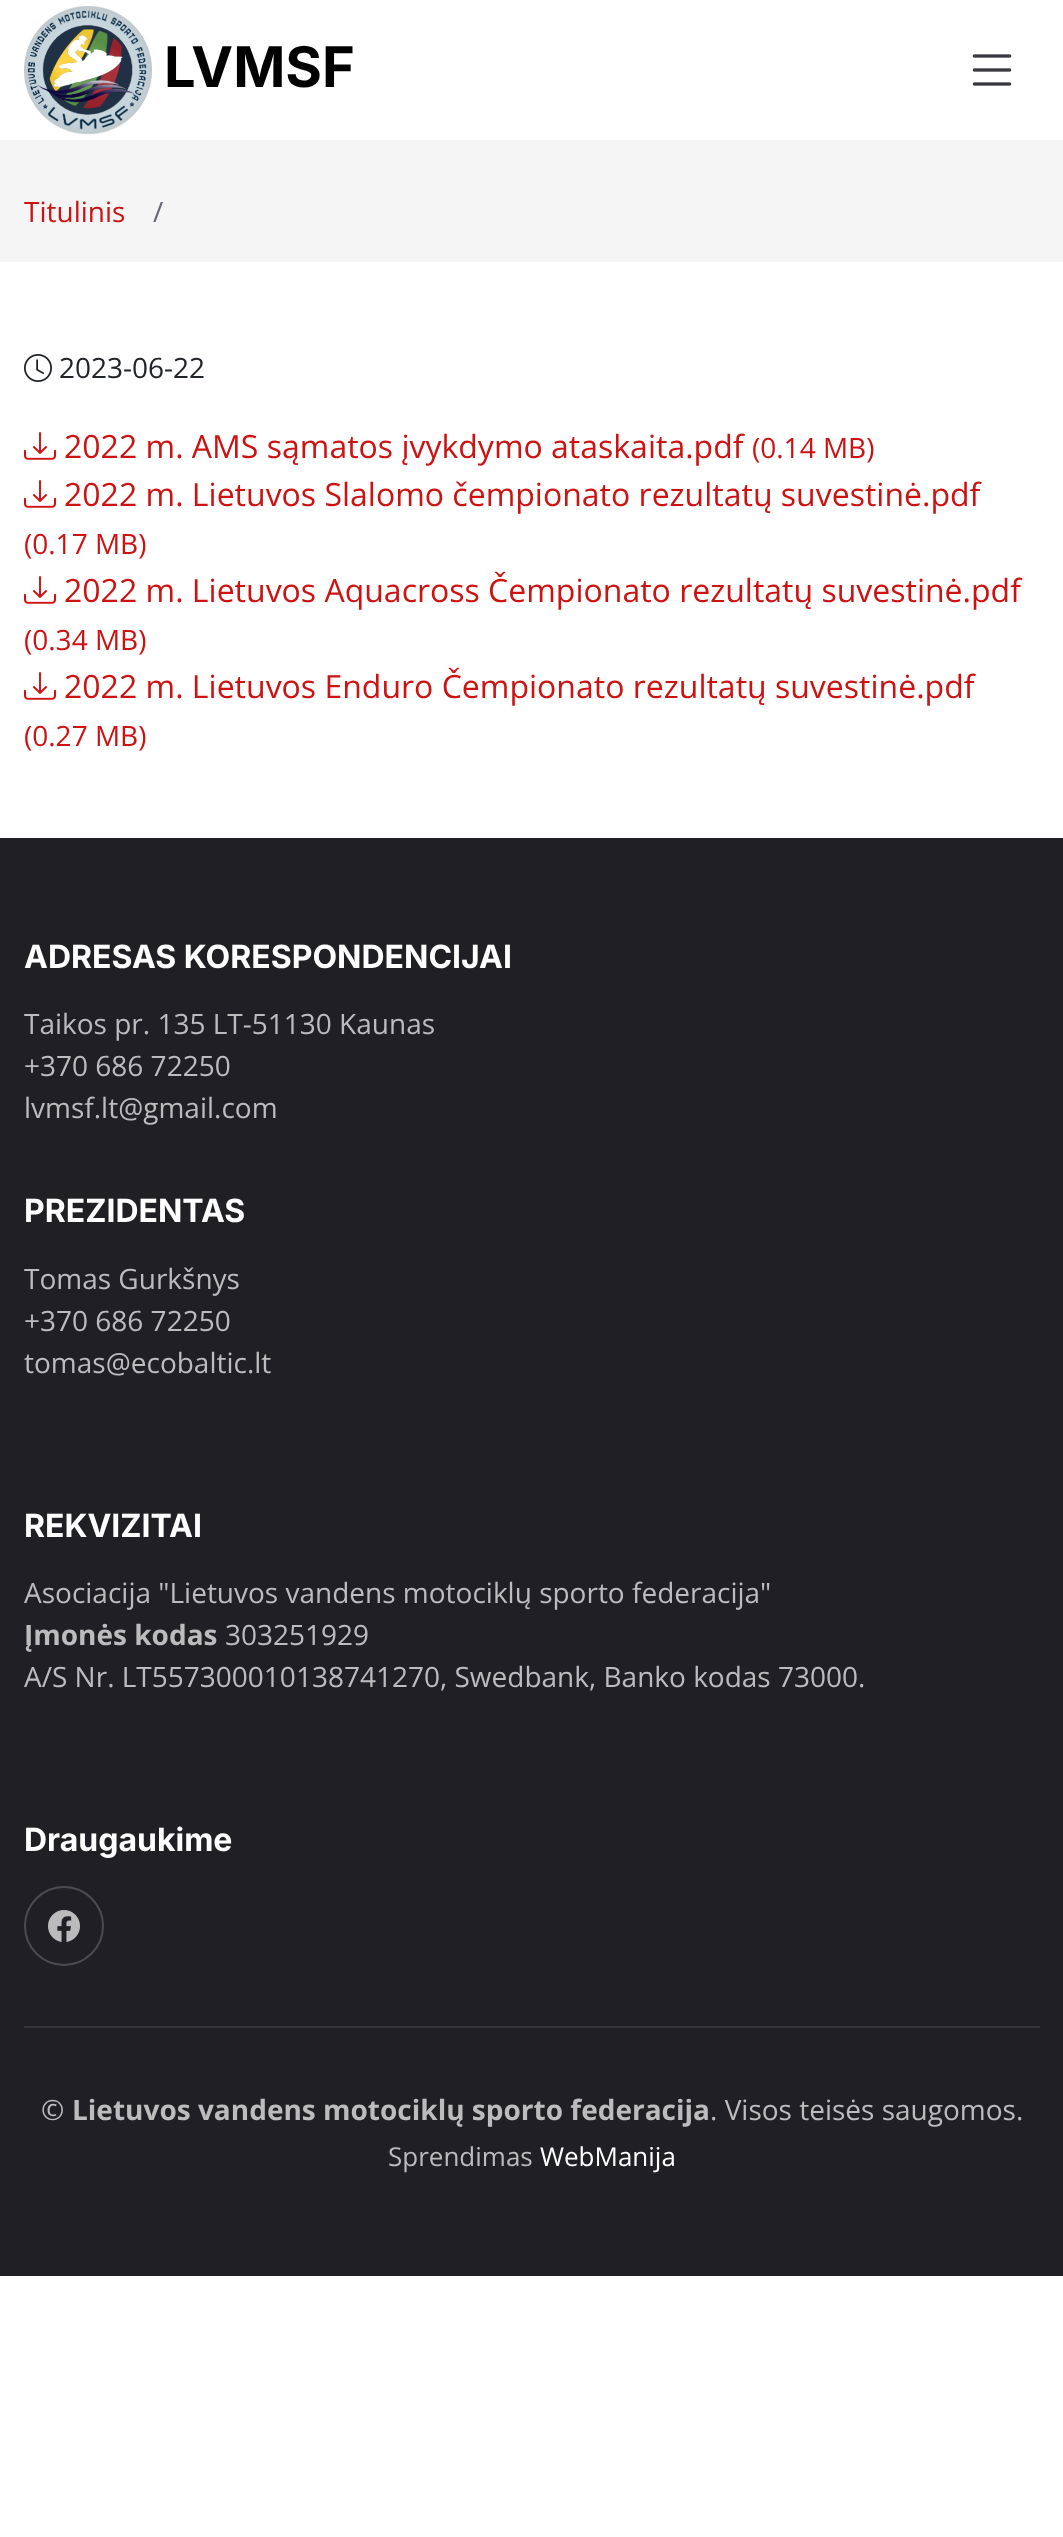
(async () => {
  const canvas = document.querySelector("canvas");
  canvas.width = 1063;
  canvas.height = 2537;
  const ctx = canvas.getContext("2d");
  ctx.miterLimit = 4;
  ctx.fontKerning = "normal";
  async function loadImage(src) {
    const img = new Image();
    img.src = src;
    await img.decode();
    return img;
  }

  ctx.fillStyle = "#ffffff";
  ctx.fillRect(0, 0, 1063, 2537);
  ctx.drawImage(await loadImage("img/1.png"), 24, 6, 128, 128);
  ctx.drawImage(await loadImage("img/2.png"), 972, 54, 40, 32);
  ctx.fillStyle = "#f5f5f6";
  ctx.fillRect(0, 140, 1063, 122);
  ctx.drawImage(await loadImage("img/3.png"), 24, 354, 28, 28);
  ctx.drawImage(await loadImage("img/4.png"), 24, 432, 32, 28);
  ctx.drawImage(await loadImage("img/4.png"), 24, 480, 32, 28);
  ctx.drawImage(await loadImage("img/4.png"), 24, 576, 32, 28);
  ctx.drawImage(await loadImage("img/4.png"), 24, 672, 32, 28);
  ctx.fillStyle = "#1f1f24";
  ctx.fillRect(0, 838, 1063, 1438);
  ctx.beginPath();
  ctx.arc(64, 1926, 39, 0, Math.PI * 2);
  ctx.strokeStyle = "#4c4c50";
  ctx.lineWidth = 2;
  ctx.stroke();
  ctx.drawImage(await loadImage("img/5.png"), 48, 1910, 32, 32);
  ctx.fillStyle = "#35353a";
  ctx.fillRect(24, 2026, 1016, 2);
  ctx.font = "bold 56px Inter";
  ctx.fillStyle = "#000000";
  ctx.fillText("LVMSF", 164, 87);
  ctx.font = "28px Open Sans";
  ctx.fillStyle = "#ce1212";
  ctx.fillText("Titulinis", 24, 222);
  ctx.fillStyle = "#676775";
  ctx.fillText("/", 153, 222);
  ctx.fillStyle = "#212529";
  ctx.fillText("2023-06-22", 59, 378);
  ctx.font = "32px Open Sans";
  ctx.fillStyle = "#ce1212";
  ctx.fillText("2022 m. AMS sąmatos įvykdymo ataskaita.pdf", 64, 458);
  ctx.font = "28px Open Sans";
  ctx.fillText("(0.14 MB)", 752, 458);
  ctx.font = "32px Open Sans";
  ctx.fillText("2022 m. Lietuvos Slalomo čempionato rezultatų suvestinė.pdf", 64, 506);
  ctx.font = "28px Open Sans";
  ctx.fillText("(0.17 MB)", 24, 554);
  ctx.font = "32px Open Sans";
  ctx.fillText("2022 m. Lietuvos Aquacross Čempionato rezultatų suvestinė.pdf", 64, 602);
  ctx.font = "28px Open Sans";
  ctx.fillText("(0.34 MB)", 24, 650);
  ctx.font = "32px Open Sans";
  ctx.fillText("2022 m. Lietuvos Enduro Čempionato rezultatų suvestinė.pdf", 64, 698);
  ctx.font = "28px Open Sans";
  ctx.fillText("(0.27 MB)", 24, 746);
  ctx.font = "bold 32px Inter";
  ctx.fillStyle = "#ffffff";
  ctx.fillText("ADRESAS KORESPONDENCIJAI", 24, 968);
  ctx.font = "28px Open Sans";
  ctx.fillStyle = "#bcbcbd";
  for (const [text, x, y] of [
    ["Taikos pr. 135 LT-51130 Kaunas", 24, 1034],
    ["+370 686 72250", 24, 1076],
    ["lvmsf.lt@gmail.com", 24, 1118],
  ]) {
    ctx.fillText(text, x, y);
  }
  ctx.font = "bold 32px Inter";
  ctx.fillStyle = "#ffffff";
  ctx.fillText("PREZIDENTAS", 24, 1222);
  ctx.font = "28px Open Sans";
  ctx.fillStyle = "#bcbcbd";
  for (const [text, x, y] of [
    ["Tomas Gurkšnys", 24, 1289],
    ["+370 686 72250", 24, 1331],
    ["tomas@ecobaltic.lt", 24, 1373],
  ]) {
    ctx.fillText(text, x, y);
  }
  ctx.font = "bold 32px Inter";
  ctx.fillStyle = "#ffffff";
  ctx.fillText("REKVIZITAI", 24, 1537);
  ctx.font = "28px Open Sans";
  ctx.fillStyle = "#bcbcbd";
  ctx.fillText("Asociacija \"Lietuvos vandens motociklų sporto federacija\"", 24, 1603);
  ctx.font = "bold 28px Open Sans";
  ctx.fillText("Įmonės kodas", 24, 1645);
  ctx.font = "28px Open Sans";
  ctx.fillText("303251929", 225, 1645);
  ctx.fillText("A/S Nr. LT557300010138741270, Swedbank, Banko kodas 73000.", 24, 1687);
  ctx.font = "bold 32px Inter";
  ctx.fillStyle = "#ffffff";
  ctx.fillText("Draugaukime", 24, 1851);
  ctx.font = "28px Open Sans";
  ctx.fillStyle = "#bcbcbd";
  ctx.fillText("©", 41, 2120);
  ctx.font = "bold 28px Open Sans";
  ctx.fillText("Lietuvos vandens motociklų sporto federacija", 72, 2120);
  ctx.font = "28px Open Sans";
  ctx.fillText(". Visos teisės saugomos.", 710, 2120);
  ctx.font = "26px Open Sans";
  ctx.fillText("Sprendimas", 388, 2166);
  ctx.fillStyle = "#ffffff";
  ctx.fillText("WebManija", 540, 2166);
})();
